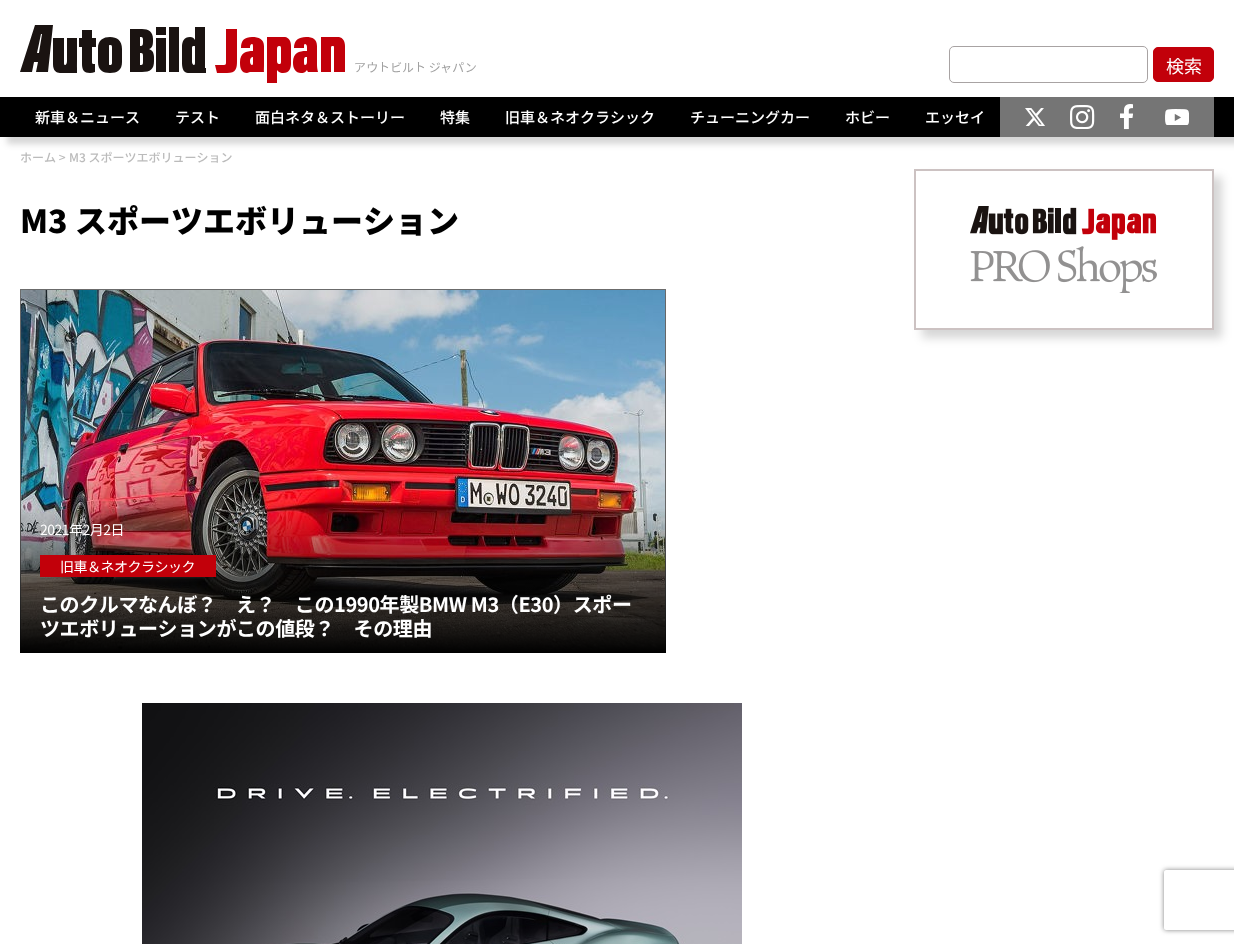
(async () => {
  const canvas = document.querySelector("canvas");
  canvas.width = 1234;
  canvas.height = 944;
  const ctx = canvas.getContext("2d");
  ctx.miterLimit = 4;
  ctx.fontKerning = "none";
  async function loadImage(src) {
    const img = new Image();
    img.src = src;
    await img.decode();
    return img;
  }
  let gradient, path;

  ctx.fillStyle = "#ffffff";
  ctx.fillRect(0, 0, 1234, 944);
  ctx.drawImage(await loadImage("img/1.png"), 20, 25, 456, 58);
  ctx.beginPath();
  ctx.roundRect(949.5, 46.5, 198, 36, 4.5);
  ctx.strokeStyle = "#a8a3a3";
  ctx.stroke();
  ctx.fillStyle = "#c2000a";
  ctx.beginPath();
  ctx.roundRect(1153.5, 47.5, 60, 34, 4.5);
  ctx.fill();
  ctx.strokeStyle = "#c2000a";
  ctx.stroke();
  ctx.fillStyle = "rgba(0, 0, 0, 0.16)";
  ctx.filter = "blur(3px)";
  ctx.beginPath();
  ctx.rect(7, 104, 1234, 40);
  ctx.fill();
  ctx.filter = "none";
  ctx.fillStyle = "#000000";
  ctx.fillRect(0, 97, 1234, 40);
  ctx.fillStyle = "#757575";
  ctx.fillRect(1000, 97, 214, 40);
  ctx.drawImage(await loadImage("img/2.png"), 1025, 108, 20, 18);
  ctx.drawImage(await loadImage("img/3.png"), 1070, 105, 25, 24);
  ctx.drawImage(await loadImage("img/4.png"), 1120, 104, 13, 26);
  ctx.drawImage(await loadImage("img/5.png"), 1165, 109, 24, 16);
  ctx.strokeStyle = "#707070";
  ctx.strokeRect(20.5, 289.5, 645, 363);
  ctx.drawImage(await loadImage("img/6.png"), 20, 289, 646, 363);
  gradient = ctx.createLinearGradient(343, 653, 343, 506);
  gradient.addColorStop(0, "#000000");
  gradient.addColorStop(1, "rgba(0, 0, 0, 0)");
  ctx.fillStyle = gradient;
  ctx.fillRect(20, 509, 646, 144);
  ctx.fillStyle = "#c2000a";
  ctx.fillRect(40, 555, 176, 22);
  ctx.drawImage(await loadImage("img/7.png"), 142, 703, 600, 241);
  ctx.save();
  path = new Path2D("M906 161H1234V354H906ZM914 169H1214V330H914Z");
  ctx.clip(path, "evenodd");
  ctx.fillStyle = "rgba(0, 0, 0, 0.16)";
  ctx.filter = "blur(5px)";
  ctx.beginPath();
  ctx.rect(922, 177, 300, 161);
  ctx.fill();
  ctx.filter = "none";
  ctx.restore();
  ctx.strokeStyle = "#ccc2c2";
  ctx.lineWidth = 2;
  ctx.strokeRect(915, 170, 298, 159);
  ctx.drawImage(await loadImage("img/8.png"), 970, 206, 187, 87);
  ctx.save();
  path = new Path2D("M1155 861H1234V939H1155ZM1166 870H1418C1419 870 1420 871 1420 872V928C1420 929 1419 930 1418 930H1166C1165 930 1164 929 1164 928V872C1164 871 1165 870 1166 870Z");
  ctx.clip(path, "evenodd");
  ctx.fillStyle = "#808080";
  ctx.filter = "blur(2.5px)";
  ctx.beginPath();
  ctx.roundRect(1164, 870, 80, 60, 2);
  ctx.fill();
  ctx.filter = "none";
  ctx.restore();
  ctx.font = "18px Noto Sans JP";
  ctx.fillStyle = "#ffffff";
  ctx.fillText("検索", 1166, 73);
  ctx.font = "500 15px Noto Sans JP";
  for (const [text, x, y] of [
    ["新車＆ニュース", 35, 123],
    ["テスト", 175, 123],
    ["面白ネタ＆ストーリー", 255, 123],
    ["特集", 440, 123],
    ["旧車＆ネオクラシック", 505, 123],
    ["チューニングカー", 690, 123],
    ["ホビー", 845, 123],
    ["エッセイ", 925, 123],
  ]) {
    ctx.fillText(text, x, y);
  }
  ctx.font = "500 12px Noto Sans JP";
  ctx.fillStyle = "#bbbbbb";
  ctx.fillText("ホーム >", 20, 162);
  ctx.fillText("M3 スポーツエボリューション", 69, 162);
  ctx.font = "900 32px Noto Sans JP";
  ctx.fillStyle = "#000000";
  ctx.fillText("M3 スポーツエボリューション", 20, 233);
  ctx.letterSpacing = "-0.5px";
  ctx.font = "14px Noto Sans JP";
  ctx.fillStyle = "#ffffff";
  ctx.fillText("2021年2月2日", 40, 535);
  ctx.fillText("旧車＆ネオクラシック", 60, 572);
  ctx.letterSpacing = "-0.4px";
  ctx.font = "bold 20px Noto Sans JP";
  ctx.fillText("このクルマなんぼ？　え？　この1990年製BMW M3（E30）スポー", 40, 612);
  ctx.fillText("ツエボリューションがこの値段？　その理由", 40, 636);
})();
